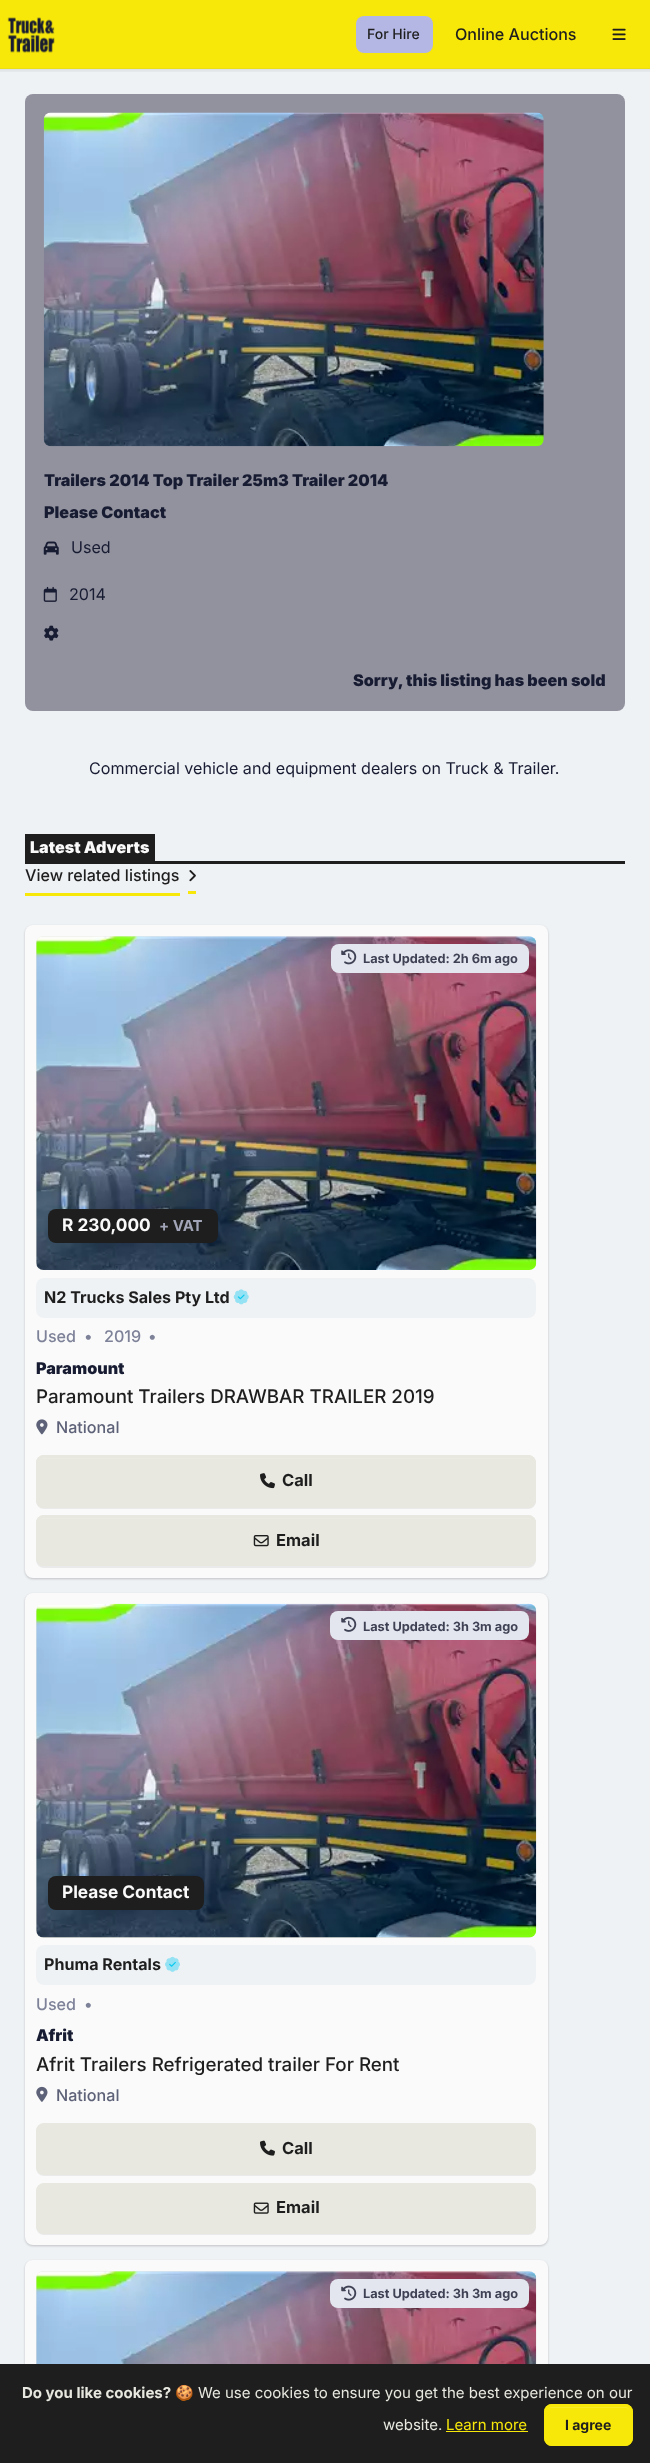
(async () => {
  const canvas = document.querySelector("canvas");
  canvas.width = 650;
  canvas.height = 2463;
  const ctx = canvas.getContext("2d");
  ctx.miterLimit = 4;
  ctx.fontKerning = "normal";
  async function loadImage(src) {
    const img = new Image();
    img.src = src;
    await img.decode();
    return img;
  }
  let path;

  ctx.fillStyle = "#eff2f5";
  ctx.fillRect(0, 0, 650, 2463);
  ctx.fillStyle = "#f7e80a";
  ctx.fillRect(0, 0, 650, 69);
  ctx.drawImage(await loadImage("img/1.png"), 7, 17, 48, 36);
  ctx.fillStyle = "#b4b6e3";
  ctx.beginPath();
  ctx.roundRect(356, 16, 77, 37, 8);
  ctx.fill();
  ctx.drawImage(await loadImage("img/2.png"), 612, 28, 14, 12);
  ctx.drawImage(await loadImage("img/3.png"), 0, 68, 650, 4);
  ctx.fillStyle = "#92929f";
  ctx.beginPath();
  ctx.roundRect(25, 94, 600, 617, 8);
  ctx.fill();
  ctx.drawImage(await loadImage("img/4.png"), 43, 112, 501, 335);
  ctx.drawImage(await loadImage("img/5.png"), 43, 541, 16, 14);
  ctx.drawImage(await loadImage("img/6.png"), 43, 586, 14, 16);
  ctx.drawImage(await loadImage("img/7.png"), 44, 625, 15, 16);
  for (const [x, y, w, h, color] of [
    [25, 861, 600, 3, "#1e1e1e"],
    [25, 834, 130, 27, "#1e1e1e"],
    [25, 893, 155, 3, "#f7e80a"],
    [188, 891, 8, 3, "#f7e80a"],
  ]) {
    ctx.fillStyle = color;
    ctx.fillRect(x, y, w, h);
  }
  ctx.drawImage(await loadImage("img/8.png"), 189, 870, 7, 12);
  ctx.fillStyle = "rgba(0, 0, 0, 0.2)";
  ctx.filter = "blur(1px)";
  ctx.beginPath();
  ctx.roundRect(25, 926, 523, 653, 8);
  ctx.fill();
  ctx.filter = "none";
  ctx.fillStyle = "#fafafa";
  ctx.beginPath();
  ctx.roundRect(25, 925, 523, 653, 8);
  ctx.fill();
  ctx.fillStyle = "#e8e8e0";
  ctx.beginPath();
  ctx.roundRect(36, 936, 500, 334, 8);
  ctx.fill();
  ctx.drawImage(await loadImage("img/10.png"), 36, 936, 501, 334);
  ctx.fillStyle = "#e4e6ef";
  ctx.beginPath();
  ctx.roundRect(331, 944, 198, 29, 8);
  ctx.fill();
  ctx.drawImage(await loadImage("img/9.png"), 341, 949, 16, 16);
  ctx.fillStyle = "#1e1e1e";
  ctx.beginPath();
  ctx.roundRect(48, 1209, 170, 34, 8);
  ctx.fill();
  ctx.fillStyle = "#eff2f5";
  ctx.beginPath();
  ctx.roundRect(36, 1278, 500, 40, 8);
  ctx.fill();
  ctx.drawImage(await loadImage("img/12.png"), 237, 1294, 8, 6);
  ctx.drawImage(await loadImage("img/11.png"), 233, 1289, 16, 16);
  ctx.drawImage(await loadImage("img/13.png"), 36, 1419, 12, 16);
  ctx.fillStyle = "rgba(30, 30, 30, 0.07)";
  ctx.filter = "blur(0.5px)";
  ctx.beginPath();
  ctx.roundRect(36, 1456, 500, 53, 8);
  ctx.fill();
  ctx.filter = "none";
  ctx.fillStyle = "#e8e8e0";
  ctx.beginPath();
  ctx.roundRect(36, 1455, 500, 53, 8);
  ctx.fill();
  ctx.fillStyle = "#ebebe4";
  path = new Path2D("M43 1459H529C532 1459 534 1461 534 1463C534 1460 532 1458 529 1458H44C41 1458 39 1460 39 1463C39 1461 41 1459 43 1459Z");
  ctx.fill(path);
  ctx.beginPath();
  ctx.roundRect(37.5, 1456.5, 497, 50, 6.5);
  ctx.strokeStyle = "#e8e8e0";
  ctx.lineWidth = 3;
  ctx.stroke();
  ctx.drawImage(await loadImage("img/14.png"), 260, 1473, 15, 16);
  ctx.fillStyle = "rgba(30, 30, 30, 0.07)";
  ctx.filter = "blur(0.5px)";
  ctx.beginPath();
  ctx.roundRect(36, 1516, 500, 52, 8);
  ctx.fill();
  ctx.filter = "none";
  ctx.fillStyle = "#e8e8e0";
  ctx.beginPath();
  ctx.roundRect(36, 1515, 500, 51, 8);
  ctx.fill();
  ctx.fillStyle = "#ebebe4";
  path = new Path2D("M43 1519H529C532 1519 534 1521 534 1523C534 1520 532 1518 529 1518H44C41 1518 39 1520 39 1523C39 1521 41 1519 43 1519Z");
  ctx.fill(path);
  ctx.beginPath();
  ctx.roundRect(37.5, 1516.5, 497, 48, 6.5);
  ctx.stroke();
  ctx.drawImage(await loadImage("img/15.png"), 253, 1535, 16, 12);
  ctx.fillStyle = "rgba(0, 0, 0, 0.2)";
  ctx.filter = "blur(1px)";
  ctx.beginPath();
  ctx.roundRect(25, 1594, 523, 652, 8);
  ctx.fill();
  ctx.filter = "none";
  ctx.fillStyle = "#fafafa";
  ctx.beginPath();
  ctx.roundRect(25, 1593, 523, 652, 8);
  ctx.fill();
  ctx.fillStyle = "#e8e8e0";
  ctx.beginPath();
  ctx.roundRect(36, 1604, 500, 334, 8);
  ctx.fill();
  ctx.drawImage(await loadImage("img/17.png"), 36, 1603, 501, 335);
  ctx.fillStyle = "#e4e6ef";
  ctx.beginPath();
  ctx.roundRect(330, 1611, 199, 29, 8);
  ctx.fill();
  ctx.drawImage(await loadImage("img/16.png"), 341, 1616, 16, 16);
  ctx.fillStyle = "#1e1e1e";
  ctx.beginPath();
  ctx.roundRect(48, 1876, 156, 34, 8);
  ctx.fill();
  ctx.fillStyle = "#eff2f5";
  ctx.beginPath();
  ctx.roundRect(36, 1945, 500, 40, 8);
  ctx.fill();
  ctx.drawImage(await loadImage("img/19.png"), 169, 1961, 7, 6);
  ctx.drawImage(await loadImage("img/18.png"), 165, 1956, 15, 16);
  ctx.drawImage(await loadImage("img/20.png"), 36, 2086, 12, 16);
  ctx.fillStyle = "rgba(30, 30, 30, 0.07)";
  ctx.filter = "blur(0.5px)";
  ctx.beginPath();
  ctx.roundRect(36, 2124, 500, 52, 8);
  ctx.fill();
  ctx.filter = "none";
  ctx.fillStyle = "#e8e8e0";
  ctx.beginPath();
  ctx.roundRect(37.5, 2124.5, 497, 49, 6.5);
  ctx.fill();
  ctx.stroke();
  ctx.drawImage(await loadImage("img/21.png"), 260, 2140, 15, 16);
  ctx.fillStyle = "rgba(30, 30, 30, 0.07)";
  ctx.filter = "blur(0.5px)";
  ctx.beginPath();
  ctx.roundRect(36, 2184, 500, 51, 8);
  ctx.fill();
  ctx.filter = "none";
  ctx.fillStyle = "#e8e8e0";
  ctx.beginPath();
  ctx.roundRect(37.5, 2184.5, 497, 48, 6.5);
  ctx.fill();
  ctx.stroke();
  ctx.drawImage(await loadImage("img/22.png"), 253, 2202, 16, 12);
  ctx.fillStyle = "rgba(0, 0, 0, 0.2)";
  ctx.filter = "blur(1px)";
  ctx.beginPath();
  ctx.roundRect(25, 2261, 523, 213, 8);
  ctx.fill();
  ctx.filter = "none";
  ctx.fillStyle = "#fafafa";
  path = new Path2D("M33 2260H540C544.5 2260 548 2263.5 548 2268V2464H25V2268C25 2263.5 28.5 2260 33 2260Z");
  ctx.fill(path);
  ctx.fillStyle = "#e8e8e0";
  path = new Path2D("M44 2271H528C532.5 2271 536 2274.5 536 2279V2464H36V2279C36 2274.5 39.5 2271 44 2271Z");
  ctx.fill(path);
  ctx.drawImage(await loadImage("img/23.png"), 36, 2271, 501, 93);
  ctx.fillStyle = "#e4e6ef";
  ctx.beginPath();
  ctx.roundRect(330, 2279, 199, 29, 8);
  ctx.fill();
  ctx.drawImage(await loadImage("img/24.png"), 341, 2285, 16, 16);
  ctx.fillStyle = "#1e1e1e";
  ctx.fillRect(0, 2364, 650, 99);
  ctx.fillStyle = "#f7e80a";
  ctx.fillRect(446, 2431, 82, 1);
  ctx.beginPath();
  ctx.roundRect(544, 2404, 89, 42, 8);
  ctx.fill();
  ctx.fillStyle = "#f7eb2e";
  path = new Path2D("M551 2408H625C628 2408 630 2410 630 2412C630 2403 618 2406 613 2406H563C558 2406 546 2403 546 2412C546 2410 548 2408 551 2408Z");
  ctx.fill(path);
  ctx.beginPath();
  ctx.roundRect(545.5, 2405.5, 86, 39, 6.5);
  ctx.strokeStyle = "#f7e80a";
  ctx.stroke();
  ctx.font = "500 14px Inter";
  ctx.fillStyle = "#1e1e1e";
  ctx.fillText("For Hire", 367, 39);
  ctx.font = "500 16.1px Inter";
  ctx.fillText("Online Auctions", 455, 40);
  ctx.font = "900 16.1px Inter";
  ctx.fillStyle = "#181c32";
  ctx.fillText("Trailers 2014 Top Trailer 25m3 Trailer 2014", 44, 486);
  ctx.fillText("Please Contact", 44, 518);
  ctx.font = "16.1px Inter";
  ctx.fillText("Used", 71, 553);
  ctx.fillText("2014", 69, 600);
  ctx.font = "900 16.1px Inter";
  ctx.fillText("Sorry, this listing has been sold", 353, 686);
  ctx.font = "16.1px Inter";
  ctx.fillText("Commercial vehicle and equipment dealers on Truck & Trailer.", 89, 774);
  ctx.font = "900 16.1px Inter";
  ctx.fillStyle = "#fafafa";
  ctx.fillText("Latest Adverts", 30, 853);
  ctx.font = "500 16.1px Inter";
  ctx.fillStyle = "#1e1e1e";
  ctx.fillText("View related listings", 25, 881);
  ctx.font = "bold 12.75px Inter";
  ctx.fillStyle = "#3f4254";
  ctx.fillText("Last Updated: 2h 6m ago", 363, 963);
  ctx.font = "bold 17.25px Inter";
  ctx.fillStyle = "#fafafa";
  ctx.fillText("R 230,000", 62, 1231);
  ctx.font = "bold 15px Inter";
  ctx.fillStyle = "#a1a5b7";
  ctx.fillText("+ VAT", 159, 1231);
  ctx.font = "bold 16.1px Inter";
  ctx.fillStyle = "#1e1e1e";
  ctx.fillText("N2 Trucks Sales Pty Ltd", 44, 1303);
  ctx.font = "500 16.1px Inter";
  ctx.fillStyle = "#7e8299";
  for (const [text, x, y] of [
    ["Used", 36, 1342],
    ["•", 84, 1342],
    ["2019", 104, 1342],
    ["•", 148, 1342],
  ]) {
    ctx.fillText(text, x, y);
  }
  ctx.font = "900 16.1px Inter";
  ctx.fillStyle = "#181c32";
  ctx.fillText("Paramount", 36, 1374);
  ctx.font = "500 18.75px Inter";
  ctx.fillStyle = "#1e1e1e";
  ctx.fillText("Paramount Trailers DRAWBAR TRAILER 2019", 36, 1403);
  ctx.font = "500 16.1px Inter";
  ctx.fillStyle = "#5e6278";
  ctx.fillText("National", 56, 1433);
  ctx.font = "bold 16.5px Inter";
  ctx.fillStyle = "#1e1e1e";
  ctx.fillText("Call", 282, 1486);
  ctx.fillText("Email", 276, 1546);
  ctx.font = "bold 12.75px Inter";
  ctx.fillStyle = "#3f4254";
  ctx.fillText("Last Updated: 3h 3m ago", 363, 1631);
  ctx.font = "bold 17.25px Inter";
  ctx.fillStyle = "#fafafa";
  ctx.fillText("Please Contact", 62, 1898);
  ctx.font = "bold 16.1px Inter";
  ctx.fillStyle = "#1e1e1e";
  ctx.fillText("Phuma Rentals", 44, 1970);
  ctx.font = "500 16.1px Inter";
  ctx.fillStyle = "#7e8299";
  ctx.fillText("Used", 36, 2010);
  ctx.fillText("•", 84, 2010);
  ctx.font = "900 16.1px Inter";
  ctx.fillStyle = "#181c32";
  ctx.fillText("Afrit", 36, 2041);
  ctx.font = "500 18.75px Inter";
  ctx.fillStyle = "#1e1e1e";
  ctx.fillText("Afrit Trailers Refrigerated trailer For Rent", 36, 2071);
  ctx.font = "500 16.1px Inter";
  ctx.fillStyle = "#5e6278";
  ctx.fillText("National", 56, 2101);
  ctx.font = "bold 16.5px Inter";
  ctx.fillStyle = "#1e1e1e";
  ctx.fillText("Call", 282, 2154);
  ctx.fillText("Email", 276, 2213);
  ctx.font = "bold 12.75px Inter";
  ctx.fillStyle = "#3f4254";
  ctx.fillText("Last Updated: 3h 3m ago", 363, 2298);
  ctx.font = "bold 15px Inter";
  ctx.fillStyle = "#e8e8e0";
  ctx.fillText("Do you like cookies?", 22, 2398);
  ctx.font = "15px Noto Color Emoji";
  ctx.fillText("🍪", 175, 2398);
  ctx.font = "15px Inter";
  ctx.fillText("We use cookies to ensure you get the best experience on our", 198, 2398);
  ctx.fillText("website.", 383, 2430);
  ctx.fillStyle = "#f7e80a";
  ctx.fillText("Learn more", 446, 2430);
  ctx.font = "bold 14px Inter";
  ctx.fillStyle = "#1e1e1e";
  ctx.fillText("I agree", 565, 2430);
})();
